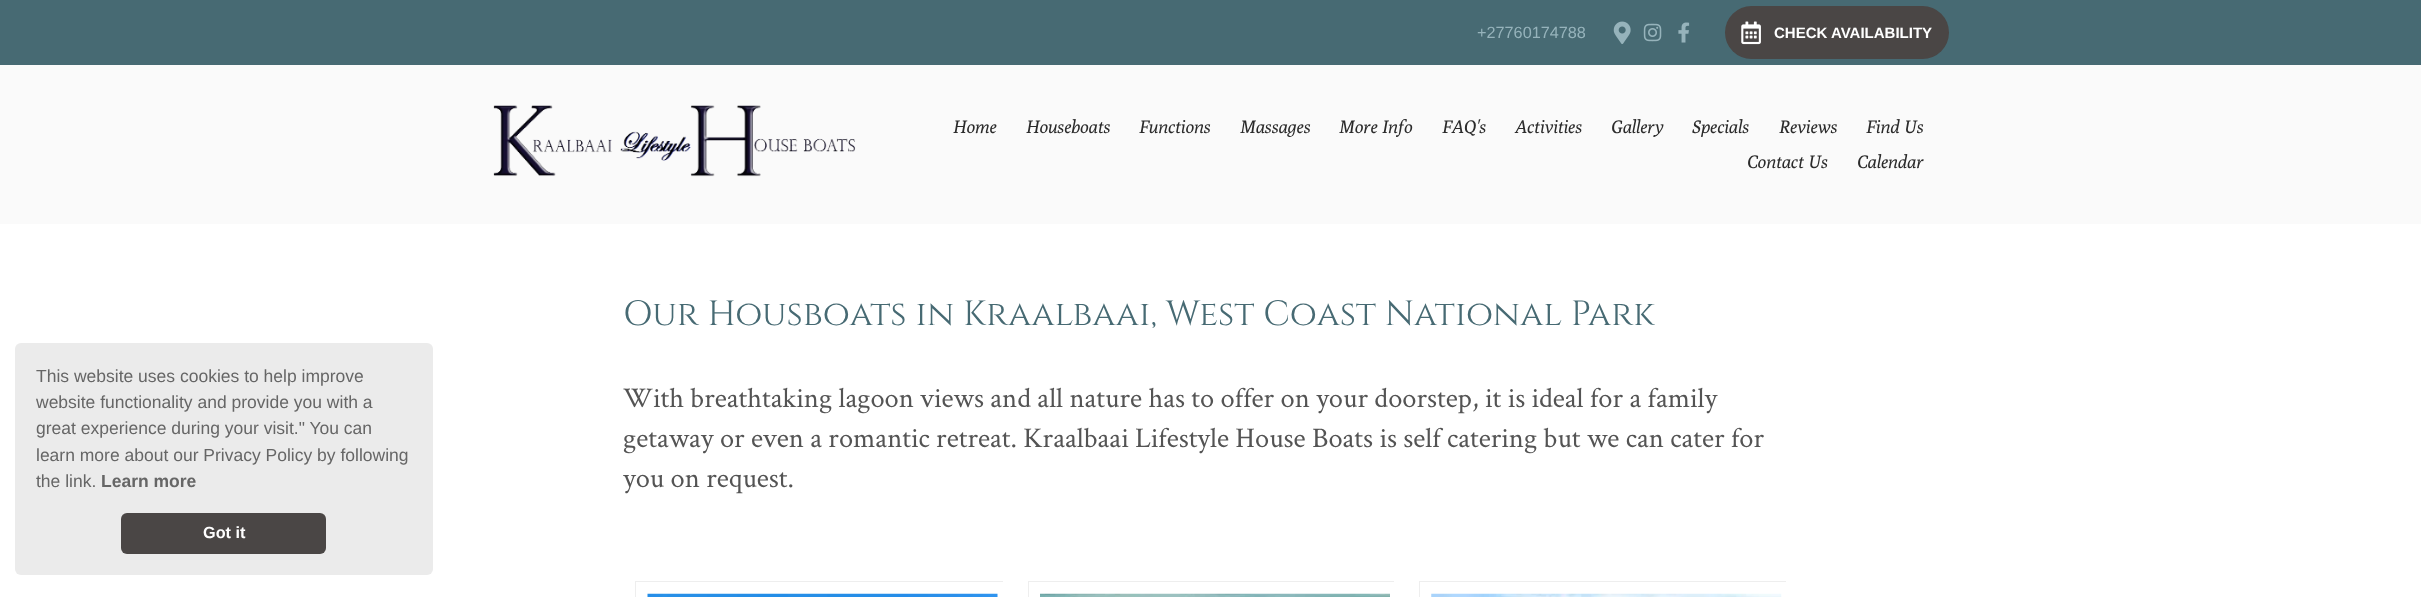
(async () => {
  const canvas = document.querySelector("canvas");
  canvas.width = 2421;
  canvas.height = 597;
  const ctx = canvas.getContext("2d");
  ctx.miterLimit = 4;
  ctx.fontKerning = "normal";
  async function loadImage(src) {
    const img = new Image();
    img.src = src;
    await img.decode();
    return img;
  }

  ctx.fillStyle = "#ffffff";
  ctx.fillRect(0, 0, 2421, 597);
  ctx.fillStyle = "#fafafa";
  ctx.fillRect(0, 65, 2421, 159);
  ctx.fillStyle = "#476a73";
  ctx.fillRect(0, 0, 2421, 65);
  ctx.drawImage(await loadImage("img/1.png"), 1613, 21, 18, 23);
  ctx.drawImage(await loadImage("img/2.png"), 1643, 23, 19, 19);
  ctx.drawImage(await loadImage("img/3.png"), 1678, 22, 12, 21);
  ctx.fillStyle = "#4a4645";
  ctx.beginPath();
  ctx.roundRect(1725, 6, 224, 53, 26.5);
  ctx.fill();
  ctx.drawImage(await loadImage("img/4.png"), 1741, 21, 20, 24);
  ctx.drawImage(await loadImage("img/5.png"), 493, 105, 363, 72);
  ctx.fillStyle = "#ebebeb";
  ctx.beginPath();
  ctx.roundRect(15, 343, 418, 232, 6);
  ctx.fill();
  ctx.fillStyle = "#4a4645";
  ctx.beginPath();
  ctx.roundRect(121, 513, 205, 41, 6);
  ctx.fill();
  ctx.save();
  ctx.beginPath();
  ctx.rect(635, 581, 368, 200);
  ctx.clip();
  ctx.strokeStyle = "#eeeeee";
  ctx.strokeRect(635.5, 581.5, 392, 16);
  ctx.restore();
  ctx.drawImage(await loadImage("img/6.png"), 647, 593, 351, 4);
  ctx.save();
  ctx.beginPath();
  ctx.rect(1028, 581, 366, 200);
  ctx.clip();
  ctx.strokeStyle = "#eeeeee";
  ctx.strokeRect(1028.5, 581.5, 390, 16);
  ctx.restore();
  ctx.drawImage(await loadImage("img/7.png"), 1040, 593, 350, 4);
  ctx.save();
  ctx.beginPath();
  ctx.rect(1419, 581, 367, 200);
  ctx.clip();
  ctx.strokeStyle = "#eeeeee";
  ctx.strokeRect(1419.5, 581.5, 391, 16);
  ctx.restore();
  ctx.drawImage(await loadImage("img/8.png"), 1431, 593, 351, 4);
  ctx.font = "16.25px Liberation Sans";
  ctx.fillStyle = "#96b3bb";
  ctx.fillText("+27760174788", 1477, 38);
  ctx.font = "bold 15px Liberation Sans";
  ctx.fillStyle = "#ffffff";
  ctx.fillText("CHECK AVAILABILITY", 1774, 38);
  ctx.font = "italic 18px Poly";
  ctx.fillStyle = "#2b2b2b";
  for (const [text, x, y] of [
    ["Home", 953, 133],
    ["Houseboats", 1026, 133],
    ["Functions", 1139, 133],
    ["Massages", 1240, 133],
    ["More Info", 1339, 133],
    ["FAQ's", 1442, 133],
    ["Activities", 1515, 133],
    ["Gallery", 1611, 133],
    ["Specials", 1692, 133],
    ["Reviews", 1779, 133],
    ["Find Us", 1866, 133],
    ["Contact Us", 1747, 168],
    ["Calendar", 1857, 168],
  ]) {
    ctx.fillText(text, x, y);
  }
  ctx.font = "17.5px Liberation Sans";
  ctx.fillStyle = "#666666";
  for (const [text, x, y] of [
    ["This website uses cookies to help improve", 36, 382],
    ["website functionality and provide you with a", 36, 408],
    ["great experience during your visit.\" You can", 36, 434],
    ["learn more about our Privacy Policy by following", 36, 461],
    ["the link.", 36, 487],
  ]) {
    ctx.fillText(text, x, y);
  }
  ctx.font = "bold 17.5px Liberation Sans";
  ctx.fillText("Learn more", 101, 487);
  ctx.font = "bold 16.25px Liberation Sans";
  ctx.fillStyle = "#ffffff";
  ctx.fillText("Got it", 203, 538);
  ctx.font = "35px cinzel";
  ctx.fillStyle = "#476a73";
  ctx.fillText("Our Housboats in Kraalbaai, West Coast National Park", 623, 325);
  ctx.font = "28.5px Crimson Text";
  ctx.fillStyle = "#545454";
  for (const [text, x, y] of [
    ["With breathtaking lagoon views and all nature has to offer on your doorstep, it is ideal for a family", 623, 407],
    ["getaway or even a romantic retreat. Kraalbaai Lifestyle House Boats is self catering but we can cater for", 623, 447],
    ["you on request.", 623, 487],
  ]) {
    ctx.fillText(text, x, y);
  }
})();
